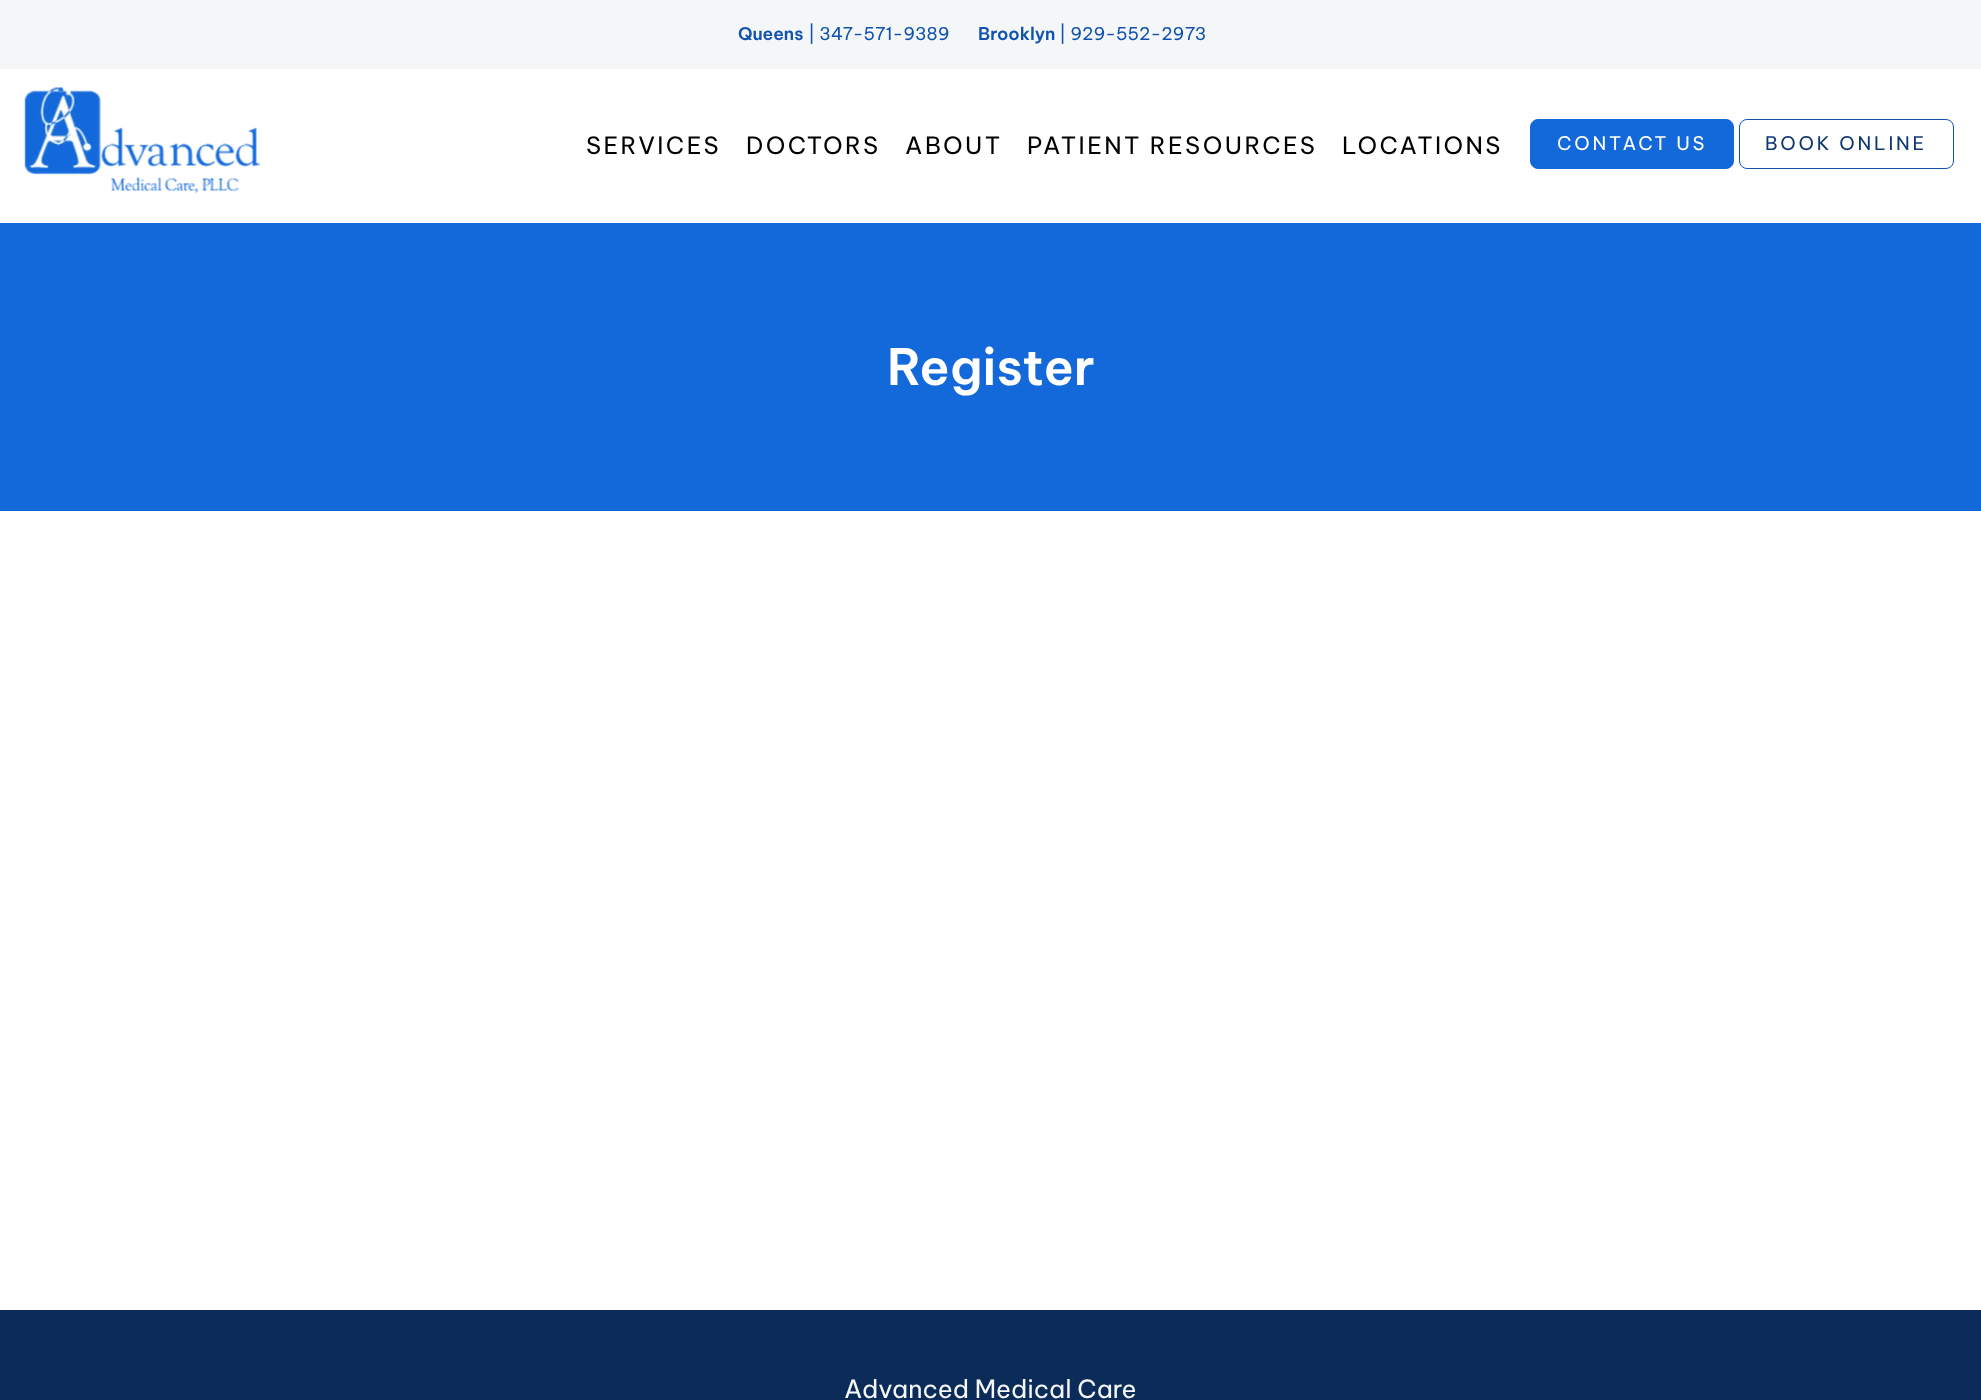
(async () => {
  const canvas = document.querySelector("canvas");
  canvas.width = 1981;
  canvas.height = 1400;
  const ctx = canvas.getContext("2d");
  ctx.miterLimit = 4;
  ctx.fontKerning = "normal";
  async function loadImage(src) {
    const img = new Image();
    img.src = src;
    await img.decode();
    return img;
  }

  ctx.fillStyle = "#ffffff";
  ctx.fillRect(0, 0, 1981, 1400);
  ctx.fillStyle = "#f5f6f8";
  ctx.fillRect(0, 0, 1981, 69);
  ctx.drawImage(await loadImage("img/1.png"), 24, 87, 237, 107);
  ctx.fillStyle = "#1368da";
  ctx.beginPath();
  ctx.roundRect(1530.5, 119.5, 203, 49, 7.5);
  ctx.fill();
  ctx.strokeStyle = "#1368da";
  ctx.stroke();
  ctx.beginPath();
  ctx.roundRect(1739.5, 119.5, 214, 49, 7.5);
  ctx.strokeStyle = "#0f53ae";
  ctx.stroke();
  ctx.fillRect(0, 223, 1981, 288);
  ctx.fillStyle = "#0b2c58";
  ctx.fillRect(0, 1310, 1981, 90);
  ctx.font = "600 17.5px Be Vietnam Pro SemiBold";
  ctx.fillStyle = "#0f53ae";
  ctx.fillText("Queens", 738, 40);
  ctx.font = "17.5px Be Vietnam Pro";
  ctx.fillText("| 347-571-9389", 808, 40);
  ctx.font = "600 17.5px Be Vietnam Pro SemiBold";
  ctx.fillText("Brooklyn", 978, 40);
  ctx.font = "17.5px Be Vietnam Pro";
  ctx.fillText("| 929-552-2973", 1059, 40);
  ctx.letterSpacing = "2.4px";
  ctx.font = "23.75px Be Vietnam Pro";
  ctx.fillStyle = "#000000";
  for (const [text, x, y] of [
    ["SERVICES", 586, 154],
    ["DOCTORS", 746, 154],
    ["ABOUT", 905, 154],
    ["PATIENT RESOURCES", 1027, 154],
    ["LOCATIONS", 1342, 154],
  ]) {
    ctx.fillText(text, x, y);
  }
  ctx.letterSpacing = "2.75px";
  ctx.font = "18.75px Be Vietnam Pro";
  ctx.fillStyle = "#ffffff";
  ctx.fillText("CONTACT US", 1557, 150);
  ctx.fillStyle = "#0e376f";
  ctx.fillText("BOOK ONLINE", 1765, 150);
  ctx.letterSpacing = "0px";
  ctx.font = "600 50px Be Vietnam Pro SemiBold";
  ctx.fillStyle = "#ffffff";
  ctx.fillText("Register", 887, 385);
  ctx.font = "25px Be Vietnam Pro";
  ctx.fillStyle = "#f5f6f8";
  ctx.fillText("Advanced Medical Care", 844, 1398);
})();
